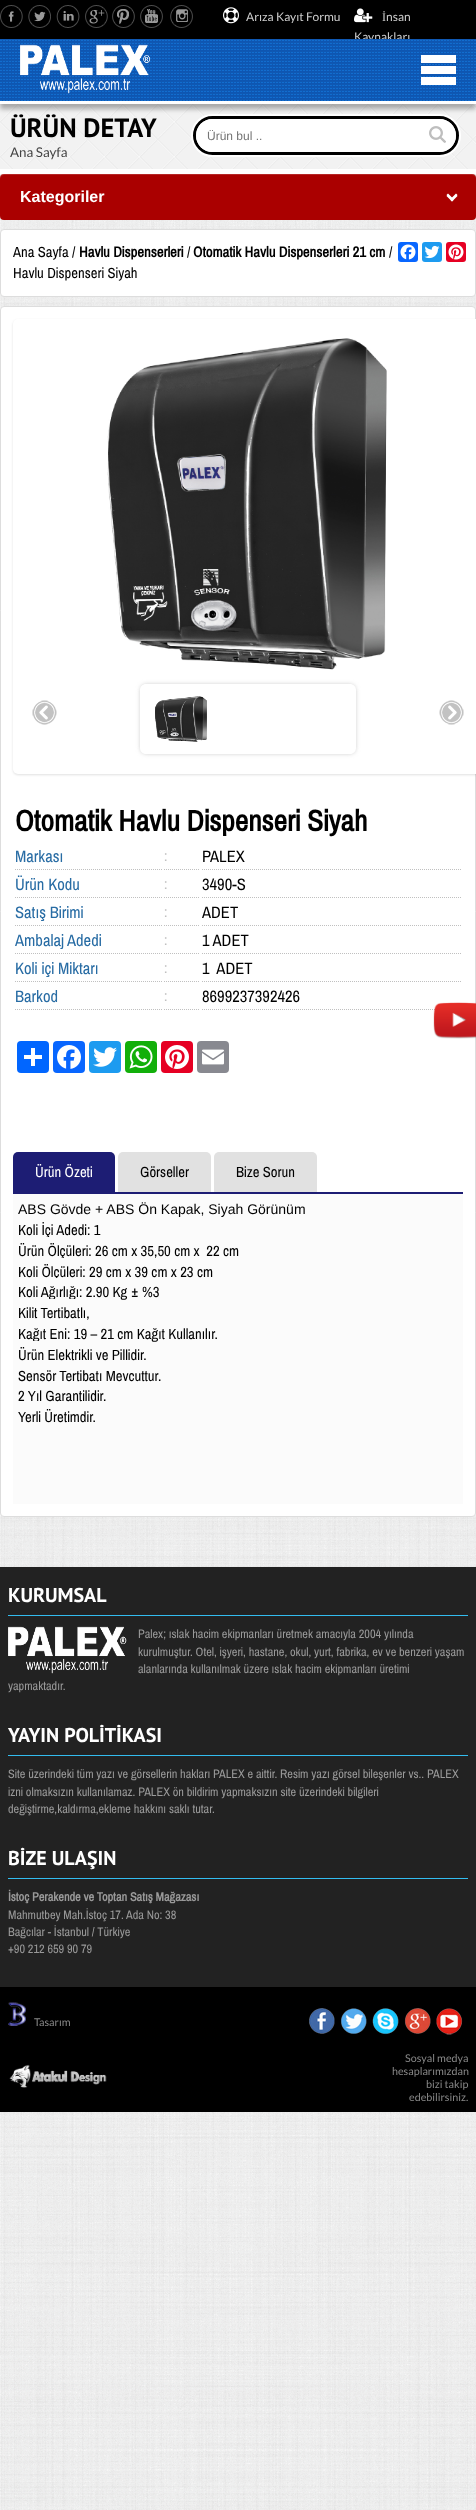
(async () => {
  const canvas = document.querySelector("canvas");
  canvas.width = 476;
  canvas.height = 2510;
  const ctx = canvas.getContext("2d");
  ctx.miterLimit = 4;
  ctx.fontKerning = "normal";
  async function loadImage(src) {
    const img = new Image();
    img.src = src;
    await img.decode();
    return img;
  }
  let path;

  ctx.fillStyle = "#ffffff";
  ctx.fillRect(0, 0, 476, 2510);
  ctx.drawImage(await loadImage("img/1.png"), 0, 174, 476, 2336);
  ctx.fillStyle = "#000000";
  ctx.fillRect(0, 0, 476, 39);
  ctx.drawImage(await loadImage("img/2.png"), 0, 5, 23, 23);
  ctx.drawImage(await loadImage("img/3.png"), 28, 5, 23, 23);
  ctx.drawImage(await loadImage("img/4.png"), 56, 5, 24, 23);
  ctx.drawImage(await loadImage("img/5.png"), 85, 5, 23, 23);
  ctx.drawImage(await loadImage("img/6.png"), 112, 5, 23, 23);
  ctx.drawImage(await loadImage("img/7.png"), 140, 5, 23, 23);
  ctx.drawImage(await loadImage("img/8.png"), 170, 5, 23, 23);
  ctx.drawImage(await loadImage("img/9.png"), 223, 7, 16, 17);
  ctx.drawImage(await loadImage("img/10.png"), 354, 8, 19, 15);
  ctx.drawImage(await loadImage("img/13.png"), 0, 104, 476, 65);
  ctx.beginPath();
  ctx.roundRect(193.5, 116.5, 265, 38, 19);
  ctx.strokeStyle = "#ffffff";
  ctx.lineWidth = 5;
  ctx.stroke();
  ctx.beginPath();
  ctx.roundRect(194.5, 117.5, 263, 36, 18);
  ctx.strokeStyle = "#000000";
  ctx.lineWidth = 3;
  ctx.stroke();
  ctx.fillStyle = "rgba(0, 0, 0, 0.3)";
  ctx.filter = "blur(2.5px)";
  ctx.beginPath();
  ctx.rect(0, 44, 476, 65);
  ctx.fill();
  ctx.filter = "none";
  ctx.fillStyle = "#ffffff";
  ctx.fillRect(0, 101, 476, 3);
  ctx.beginPath();
  ctx.roundRect(196, 119, 260, 33, 16.5);
  ctx.fill();
  ctx.drawImage(await loadImage("img/14.png"), 429, 126, 17, 17);
  ctx.fillStyle = "#aa0000";
  ctx.beginPath();
  ctx.roundRect(0, 174, 476, 46, 4);
  ctx.fill();
  ctx.fillStyle = "rgba(255, 255, 255, 0.15)";
  path = new Path2D("M4 175H472C474 175 476 177 476 179C476 176 475 174 472 174H4C1 174 0 176 0 179C0 177 2 175 4 175Z");
  ctx.fill(path);
  ctx.fillStyle = "#ffffff";
  path = new Path2D("M452 201.5L446.5 196L448 194.5L453.5 200Z");
  ctx.fill(path);
  path = new Path2D("M452 201.5L450.5 200L456 194.5L457.5 196Z");
  ctx.fill(path);
  path = new Path2D("M452 200.5L446.5 195L448 193.5L453.5 199Z");
  ctx.fill(path);
  path = new Path2D("M452 200.5L450.5 199L456 193.5L457.5 195Z");
  ctx.fill(path);
  ctx.beginPath();
  ctx.roundRect(0.5, 229.5, 475, 67, 3.5);
  ctx.fill();
  ctx.strokeStyle = "#dddddd";
  ctx.lineWidth = 1;
  ctx.stroke();
  ctx.fillStyle = "#0866ff";
  ctx.beginPath();
  ctx.roundRect(398, 242, 20, 20, 3);
  ctx.fill();
  ctx.drawImage(await loadImage("img/15.png"), 400, 244, 16, 16);
  ctx.fillStyle = "#1d9bf0";
  ctx.beginPath();
  ctx.roundRect(422, 242, 20, 20, 3);
  ctx.fill();
  ctx.drawImage(await loadImage("img/16.png"), 424, 245, 16, 14);
  ctx.fillStyle = "#e60023";
  ctx.beginPath();
  ctx.roundRect(446, 242, 20, 20, 3);
  ctx.fill();
  ctx.drawImage(await loadImage("img/17.png"), 448, 244, 16, 16);
  ctx.fillStyle = "#ffffff";
  ctx.beginPath();
  ctx.roundRect(0.5, 306.5, 475, 1210, 3.5);
  ctx.fill();
  ctx.stroke();
  ctx.fillStyle = "rgba(0, 0, 0, 0.12)";
  ctx.filter = "blur(1px)";
  ctx.beginPath();
  ctx.roundRect(13, 320, 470, 455, 5);
  ctx.fill();
  ctx.filter = "none";
  ctx.fillStyle = "#ffffff";
  ctx.beginPath();
  ctx.roundRect(13, 319, 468, 455, 5);
  ctx.fill();
  ctx.drawImage(await loadImage("img/18.png"), 107, 338, 280, 332);
  ctx.drawImage(await loadImage("img/19.png"), 32, 700, 25, 25);
  ctx.save();
  path = new Path2D("M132 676H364V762H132ZM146 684H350C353.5 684 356 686.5 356 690V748C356 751.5 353.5 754 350 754H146C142.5 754 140 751.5 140 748V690C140 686.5 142.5 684 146 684Z");
  ctx.clip(path, "evenodd");
  ctx.fillStyle = "#bababa";
  ctx.filter = "blur(2.5px)";
  ctx.beginPath();
  ctx.roundRect(141, 685, 214, 68, 5);
  ctx.fill();
  ctx.filter = "none";
  ctx.restore();
  ctx.drawImage(await loadImage("img/20.png"), 155, 696, 52, 46);
  ctx.drawImage(await loadImage("img/21.png"), 439, 700, 25, 25);
  path = new Path2D("M15 869.5H162");
  ctx.strokeStyle = "#c0c0c0";
  ctx.setLineDash([1, 1]);
  ctx.stroke(path);
  path = new Path2D("M164 869.5H200");
  ctx.stroke(path);
  path = new Path2D("M202 869.5H461");
  ctx.stroke(path);
  path = new Path2D("M15 897.5H162");
  ctx.stroke(path);
  path = new Path2D("M164 897.5H200");
  ctx.stroke(path);
  path = new Path2D("M202 897.5H461");
  ctx.stroke(path);
  path = new Path2D("M15 925.5H162");
  ctx.stroke(path);
  path = new Path2D("M164 925.5H200");
  ctx.stroke(path);
  path = new Path2D("M202 925.5H461");
  ctx.stroke(path);
  path = new Path2D("M15 953.5H162");
  ctx.stroke(path);
  path = new Path2D("M164 953.5H200");
  ctx.stroke(path);
  path = new Path2D("M202 953.5H461");
  ctx.stroke(path);
  path = new Path2D("M15 981.5H162");
  ctx.stroke(path);
  path = new Path2D("M164 981.5H200");
  ctx.stroke(path);
  path = new Path2D("M202 981.5H461");
  ctx.stroke(path);
  path = new Path2D("M15 1009.5H162");
  ctx.stroke(path);
  path = new Path2D("M164 1009.5H200");
  ctx.stroke(path);
  path = new Path2D("M202 1009.5H461");
  ctx.stroke(path);
  ctx.fillStyle = "#0166ff";
  ctx.beginPath();
  ctx.roundRect(17, 1041, 32, 32, 4);
  ctx.fill();
  ctx.fillStyle = "#ffffff";
  ctx.fillRect(31, 1048, 4, 18);
  ctx.fillRect(24, 1055, 18, 4);
  ctx.fillStyle = "#0866ff";
  ctx.beginPath();
  ctx.roundRect(53, 1041, 32, 32, 4);
  ctx.fill();
  ctx.drawImage(await loadImage("img/22.png"), 57, 1045, 24, 24);
  ctx.fillStyle = "#1d9bf0";
  ctx.beginPath();
  ctx.roundRect(89, 1041, 32, 32, 4);
  ctx.fill();
  ctx.drawImage(await loadImage("img/23.png"), 93, 1047, 24, 20);
  ctx.fillStyle = "#12af0a";
  ctx.beginPath();
  ctx.roundRect(125, 1041, 32, 32, 4);
  ctx.fill();
  ctx.drawImage(await loadImage("img/24.png"), 129, 1045, 24, 24);
  ctx.fillStyle = "#e60023";
  ctx.beginPath();
  ctx.roundRect(161, 1041, 32, 32, 4);
  ctx.fill();
  ctx.drawImage(await loadImage("img/25.png"), 165, 1045, 24, 24);
  ctx.fillStyle = "#888990";
  ctx.beginPath();
  ctx.roundRect(197, 1041, 32, 32, 4);
  ctx.fill();
  ctx.drawImage(await loadImage("img/26.png"), 202, 1049, 22, 16);
  ctx.fillStyle = "#1d1d74";
  ctx.beginPath();
  ctx.roundRect(13, 1152, 102, 41, [5, 5, 0, 0]);
  ctx.fill();
  ctx.fillStyle = "#e1e1e1";
  ctx.beginPath();
  ctx.roundRect(118, 1152, 93, 41, [5, 5, 0, 0]);
  ctx.fill();
  ctx.beginPath();
  ctx.roundRect(214, 1152, 103, 41, [5, 5, 0, 0]);
  ctx.fill();
  ctx.fillStyle = "#fbfbfb";
  ctx.fillRect(13, 1194, 450, 310);
  ctx.fillStyle = "#1d1d74";
  ctx.fillRect(13, 1192, 450, 2);
  ctx.drawImage(await loadImage("img/27.png"), 433, 1002, 43, 37);
  ctx.fillStyle = "#222222";
  ctx.fillRect(0, 1567, 476, 420);
  ctx.fillStyle = "#33bdef";
  ctx.fillRect(8, 1615, 460, 1);
  ctx.drawImage(await loadImage("img/28.png"), 8, 1626, 119, 48);
  for (const [x, y, w, h, color] of [
    [8, 1755, 460, 1, "#33bdef"],
    [8, 1878, 460, 1, "#33bdef"],
    [0, 1987, 476, 125, "#000000"],
  ]) {
    ctx.fillStyle = color;
    ctx.fillRect(x, y, w, h);
  }
  ctx.drawImage(await loadImage("img/29.png"), 8, 2002, 18, 24);
  ctx.drawImage(await loadImage("img/30.png"), 309, 2008, 26, 26);
  ctx.drawImage(await loadImage("img/31.png"), 341, 2008, 26, 26);
  ctx.drawImage(await loadImage("img/32.png"), 372, 2008, 27, 27);
  ctx.drawImage(await loadImage("img/33.png"), 404, 2008, 27, 26);
  ctx.drawImage(await loadImage("img/34.png"), 436, 2008, 27, 27);
  ctx.drawImage(await loadImage("img/35.png"), 9, 2064, 98, 24);
  ctx.font = "12px Lato";
  ctx.fillStyle = "#cccccc";
  ctx.fillText("Arıza Kayıt Formu", 246, 21);
  ctx.font = "12px Liberation Serif";
  ctx.fillText("İ", 382, 21);
  ctx.font = "12px Lato";
  ctx.fillText("nsan", 386, 21);
  ctx.fillText("Kaynakları", 354, 41);
  ctx.drawImage(await loadImage("img/11.png"), 0, 39, 476, 62);
  ctx.drawImage(await loadImage("img/12.png"), 20, 44, 131, 50);
  for (const [x, y, w, h, color] of [
    [421, 55, 35, 8, "#ffffff"],
    [421, 66, 35, 8, "#ffffff"],
    [421, 77, 35, 8, "#ffffff"],
  ]) {
    ctx.fillStyle = color;
    ctx.fillRect(x, y, w, h);
  }
  ctx.font = "bold 26.5px PT Sans";
  ctx.fillStyle = "#000000";
  ctx.fillText("ÜRÜN DETAY", 10, 137);
  ctx.font = "12px Liberation Sans";
  ctx.fillStyle = "#757575";
  ctx.fillText("Ürün bul ..", 207, 140);
  ctx.font = "13.35px Lato";
  ctx.fillStyle = "#444444";
  ctx.fillText("Ana Sayfa", 10, 157);
  ctx.font = "bold 16px Liberation Sans";
  ctx.fillStyle = "#ffffff";
  ctx.fillText("Kategoriler", 20, 202);
  ctx.font = "16px Pragati Narrow";
  ctx.fillStyle = "#000000";
  ctx.fillText("Ana Sayfa /", 13, 257);
  ctx.font = "bold 16px Pragati Narrow";
  ctx.fillText("Havlu Dispenserleri", 79, 257);
  ctx.font = "16px Pragati Narrow";
  ctx.fillText("/", 187, 257);
  ctx.font = "bold 16px Pragati Narrow";
  ctx.fillText("Otomatik Havlu Dispenserleri 21 cm", 193, 257);
  ctx.font = "16px Pragati Narrow";
  ctx.fillText("/", 389, 257);
  ctx.fillText("Havlu Dispenseri Siyah", 13, 278);
  ctx.font = "bold 32px Pragati Narrow";
  ctx.fillText("Otomatik Havlu Dispenseri Siyah", 15, 831);
  ctx.font = "18px Pragati Narrow";
  ctx.fillStyle = "#286ca4";
  ctx.fillText("Markası", 15, 862);
  ctx.font = "16px Pragati Narrow";
  ctx.fillStyle = "#c0c0c0";
  ctx.fillText(":", 164, 861);
  ctx.font = "18px Pragati Narrow";
  ctx.fillStyle = "#000000";
  ctx.fillText("PALEX", 202, 862);
  ctx.fillStyle = "#286ca4";
  ctx.fillText("Ürün Kodu", 15, 890);
  ctx.font = "16px Pragati Narrow";
  ctx.fillStyle = "#c0c0c0";
  ctx.fillText(":", 164, 889);
  ctx.font = "18px Pragati Narrow";
  ctx.fillStyle = "#000000";
  ctx.fillText("3490-S", 202, 890);
  ctx.fillStyle = "#286ca4";
  ctx.fillText("Satış Birimi", 15, 918);
  ctx.font = "16px Pragati Narrow";
  ctx.fillStyle = "#c0c0c0";
  ctx.fillText(":", 164, 917);
  ctx.font = "18px Pragati Narrow";
  ctx.fillStyle = "#000000";
  ctx.fillText("ADET", 202, 918);
  ctx.fillStyle = "#286ca4";
  ctx.fillText("Ambalaj", 15, 946);
  ctx.fillText("Adedi", 67, 946);
  ctx.font = "16px Pragati Narrow";
  ctx.fillStyle = "#c0c0c0";
  ctx.fillText(":", 164, 945);
  ctx.font = "18px Pragati Narrow";
  ctx.fillStyle = "#000000";
  ctx.fillText("1 ADET", 202, 946);
  ctx.fillStyle = "#286ca4";
  ctx.fillText("Koli içi Miktarı", 15, 974);
  ctx.font = "16px Pragati Narrow";
  ctx.fillStyle = "#c0c0c0";
  ctx.fillText(":", 164, 973);
  ctx.font = "18px Pragati Narrow";
  ctx.fillStyle = "#000000";
  ctx.fillText("1  ADET", 202, 974);
  ctx.fillStyle = "#286ca4";
  ctx.fillText("Barkod", 15, 1002);
  ctx.font = "16px Pragati Narrow";
  ctx.fillStyle = "#c0c0c0";
  ctx.fillText(":", 164, 1001);
  ctx.font = "18px Pragati Narrow";
  ctx.fillStyle = "#000000";
  ctx.fillText("8699237392426", 202, 1002);
  ctx.font = "16px Pragati Narrow";
  ctx.fillStyle = "#ffffff";
  ctx.fillText("Ürün Özeti", 35, 1177);
  ctx.fillStyle = "#000000";
  ctx.fillText("Görseller", 140, 1177);
  ctx.fillText("Bize Sorun", 236, 1177);
  ctx.font = "14px Liberation Sans";
  ctx.fillText("ABS Gövde + ABS Ön Kapak, Siyah Görünüm", 18, 1214);
  ctx.font = "16px Pragati Narrow";
  ctx.fillText("Koli İçi Adedi: 1", 18, 1235);
  ctx.fillText("Ürün Ölçüleri: 26 cm x 35,50 cm x  22 cm", 18, 1256);
  ctx.fillStyle = "#fbfbfb";
  ctx.fillRect(46, 1237, 3, 1);
  ctx.fillStyle = "#000000";
  ctx.fillText("Koli Ölçüleri: 29 cm x 39 cm x 23 cm", 18, 1277);
  ctx.fillStyle = "#fbfbfb";
  ctx.fillRect(61, 1258, 3, 1);
  ctx.fillStyle = "#000000";
  ctx.fillText("Koli Ağırlığı: 2.90 Kg ± %3", 18, 1297);
  ctx.fillStyle = "#fbfbfb";
  ctx.fillRect(55, 1278, 3, 2);
  ctx.fillStyle = "#000000";
  ctx.fillText("Kilit Tertibatlı,", 18, 1318);
  ctx.fillStyle = "#fbfbfb";
  ctx.fillRect(49, 1299, 26, 1);
  ctx.fillStyle = "#000000";
  ctx.fillText("Kağıt Eni: 19 – 21 cm Kağıt Kullanılır.", 18, 1339);
  ctx.fillText("Ürün Elektrikli ve Pillidir.", 18, 1360);
  ctx.fillStyle = "#fbfbfb";
  ctx.fillRect(33, 1341, 6, 1);
  ctx.fillStyle = "#000000";
  for (const [text, x, y] of [
    ["Sensör Tertibatı Mevcuttur.", 18, 1381],
    ["2 Yıl Garantilidir.", 18, 1401],
    ["Yerli Üretimdir.", 18, 1422],
  ]) {
    ctx.fillText(text, x, y);
  }
  ctx.font = "bold 20px PT Sans";
  ctx.fillStyle = "#ffffff";
  ctx.fillText("KURUMSAL", 8, 1602);
  ctx.font = "13.35px Pragati Narrow";
  ctx.fillStyle = "#999999";
  for (const [text, x, y] of [
    ["Palex; ıslak hacim ekipmanları üretmek amacıyla 2004 yılında", 138, 1638],
    ["kurulmuştur. Otel, işyeri, hastane, okul, yurt, fabrika, ev ve benzeri yaşam", 138, 1656],
    ["alanlarında kullanılmak üzere ıslak hacim ekipmanları üretimi", 138, 1673],
    ["yapmaktadır.", 8, 1690],
  ]) {
    ctx.fillText(text, x, y);
  }
  ctx.font = "bold 20px PT Sans";
  ctx.fillStyle = "#ffffff";
  ctx.fillText("YAYIN POLİTİKASI", 8, 1742);
  ctx.font = "13.35px Pragati Narrow";
  ctx.fillStyle = "#999999";
  for (const [text, x, y] of [
    ["Site üzerindeki tüm yazı ve görsellerin hakları PALEX e aittir. Resim yazı görsel bileşenler vs.. PALEX", 8, 1778],
    ["izni olmaksızın kullanılamaz. PALEX ön bildirim yapmaksızın site üzerindeki bilgileri", 8, 1796],
    ["değiştirme,kaldırma,ekleme hakkını saklı tutar.", 8, 1813],
  ]) {
    ctx.fillText(text, x, y);
  }
  ctx.font = "bold 20px PT Sans";
  ctx.fillStyle = "#ffffff";
  ctx.fillText("BİZE ULAŞIN", 8, 1865);
  ctx.font = "bold 13.35px Pragati Narrow";
  ctx.fillStyle = "#999999";
  ctx.fillText("İstoç Perakende ve Toptan Satış Mağazası", 8, 1901);
  ctx.font = "13.35px Pragati Narrow";
  for (const [text, x, y] of [
    ["Mahmutbey Mah.İstoç 17. Ada No: 38", 8, 1919],
    ["Bağcılar - İstanbul / Türkiye", 8, 1936],
    ["+90 212 659 90 79", 8, 1953],
  ]) {
    ctx.fillText(text, x, y);
  }
  ctx.font = "10.75px Lato";
  ctx.fillStyle = "#888888";
  for (const [text, x, y] of [
    ["Tasarım", 34, 2026],
    ["Sosyal medya", 405, 2062],
    ["hesaplarımızdan", 392, 2075],
    ["bizi takip", 426, 2088],
    ["edebilirsiniz.", 409, 2101],
  ]) {
    ctx.fillText(text, x, y);
  }
})();
